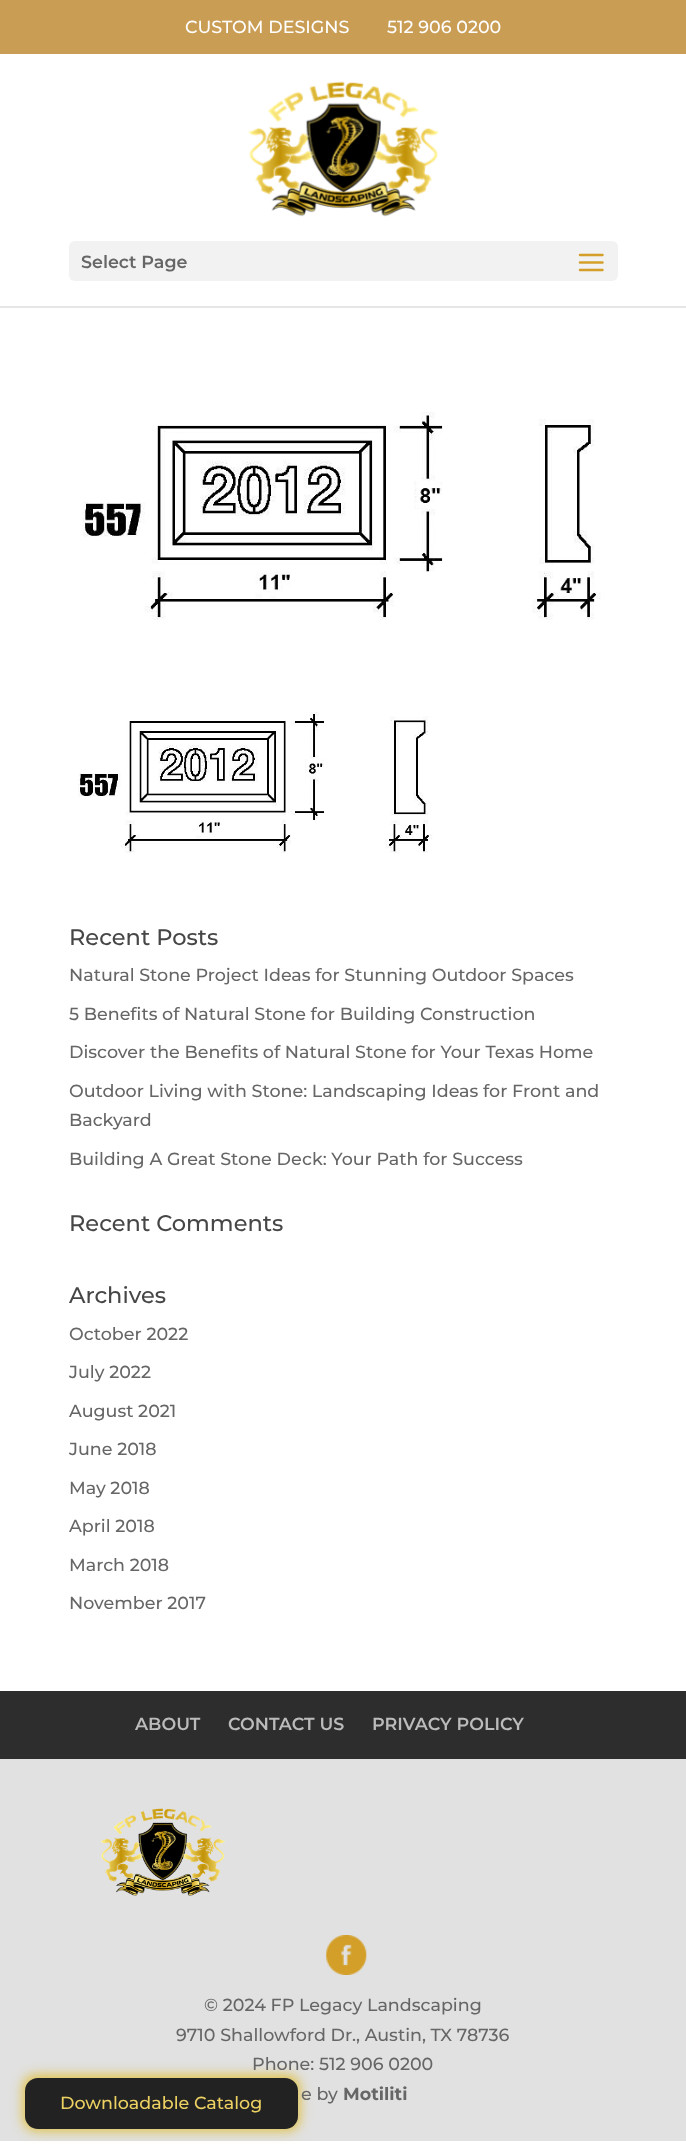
(async () => {
  const canvas = document.querySelector("canvas");
  canvas.width = 686;
  canvas.height = 2153;
  const ctx = canvas.getContext("2d");
  ctx.miterLimit = 4;
  ctx.fontKerning = "normal";
  async function loadImage(src) {
    const img = new Image();
    img.src = src;
    await img.decode();
    return img;
  }

  ctx.fillStyle = "#ffffff";
  ctx.fillRect(0, 0, 686, 2153);
  ctx.fillStyle = "#e6e6e6";
  ctx.fillRect(0, 306, 686, 2);
  ctx.fillStyle = "#ca9d55";
  ctx.fillRect(0, 0, 686, 54);
  ctx.drawImage(await loadImage("img/1.png"), 248, 81, 191, 136);
  ctx.fillStyle = "#f2f2f2";
  ctx.beginPath();
  ctx.roundRect(69, 241, 549, 40, 6);
  ctx.fill();
  ctx.drawImage(await loadImage("img/2.png"), 578, 253, 26, 19);
  ctx.drawImage(await loadImage("img/3.png"), 82, 412, 519, 208);
  ctx.drawImage(await loadImage("img/4.png"), 78, 712, 355, 141);
  ctx.fillStyle = "#2d2d2d";
  ctx.fillRect(0, 1691, 686, 68);
  ctx.fillStyle = "#e1e1e1";
  ctx.fillRect(0, 1759, 686, 382);
  ctx.drawImage(await loadImage("img/5.png"), 100, 1808, 125, 88);
  ctx.drawImage(await loadImage("img/6.png"), 326, 1935, 41, 40);
  ctx.fillStyle = "#dfc042";
  ctx.filter = "blur(6px)";
  ctx.beginPath();
  ctx.roundRect(23, 2075, 277, 56, 13);
  ctx.fill();
  ctx.filter = "none";
  ctx.fillStyle = "#222222";
  ctx.beginPath();
  ctx.roundRect(25, 2078, 273, 51, 13);
  ctx.fill();
  ctx.font = "500 17.5px Montserrat";
  ctx.fillStyle = "#ffffff";
  ctx.fillText("CUSTOM DESIGNS", 185, 33);
  ctx.fillText("512 906 0200", 387, 33);
  ctx.font = "600 17.5px Montserrat";
  ctx.fillStyle = "#666666";
  ctx.fillText("Select Page", 81, 268);
  ctx.font = "500 22.5px Montserrat";
  ctx.fillStyle = "#464646";
  ctx.fillText("Recent Posts", 69, 945);
  ctx.font = "500 17.5px Montserrat";
  ctx.fillStyle = "#666666";
  for (const [text, x, y] of [
    ["Natural Stone Project Ideas for Stunning Outdoor Spaces", 69, 981],
    ["5 Benefits of Natural Stone for Building Construction", 69, 1020],
    ["Discover the Benefits of Natural Stone for Your Texas Home", 69, 1058],
    ["Outdoor Living with Stone: Landscaping Ideas for Front and", 69, 1097],
    ["Backyard", 69, 1126],
    ["Building A Great Stone Dесk: Your Path for Success", 69, 1165],
  ]) {
    ctx.fillText(text, x, y);
  }
  ctx.font = "500 22.5px Montserrat";
  ctx.fillStyle = "#464646";
  ctx.fillText("Recent Comments", 69, 1231);
  ctx.fillText("Archives", 69, 1303);
  ctx.font = "500 17.5px Montserrat";
  ctx.fillStyle = "#666666";
  for (const [text, x, y] of [
    ["October 2022", 69, 1340],
    ["July 2022", 69, 1378],
    ["August 2021", 69, 1417],
    ["June 2018", 69, 1455],
    ["May 2018", 69, 1494],
    ["April 2018", 69, 1532],
    ["March 2018", 69, 1571],
    ["November 2017", 69, 1609],
  ]) {
    ctx.fillText(text, x, y);
  }
  ctx.font = "600 17.5px Montserrat";
  ctx.fillStyle = "#bbbbbb";
  for (const [text, x, y] of [
    ["ABOUT", 135, 1730],
    ["CONTACT US", 228, 1730],
    ["PRIVACY POLICY", 372, 1730],
  ]) {
    ctx.fillText(text, x, y);
  }
  ctx.font = "500 17.5px Montserrat";
  ctx.fillStyle = "#666666";
  for (const [text, x, y] of [
    ["© 2024 FP Legacy Landscaping", 204, 2011],
    ["9710 Shallowford Dr., Austin, TX 78736", 176, 2041],
    ["Phone: 512 906 0200", 252, 2070],
    ["e by", 301, 2100],
  ]) {
    ctx.fillText(text, x, y);
  }
  ctx.font = "bold 17.5px Montserrat";
  ctx.fillText("Motiliti", 343, 2100);
  ctx.font = "500 17.5px Montserrat";
  ctx.fillStyle = "#ecd162";
  ctx.fillText("Downloadable Catalog", 60, 2109);
})();
